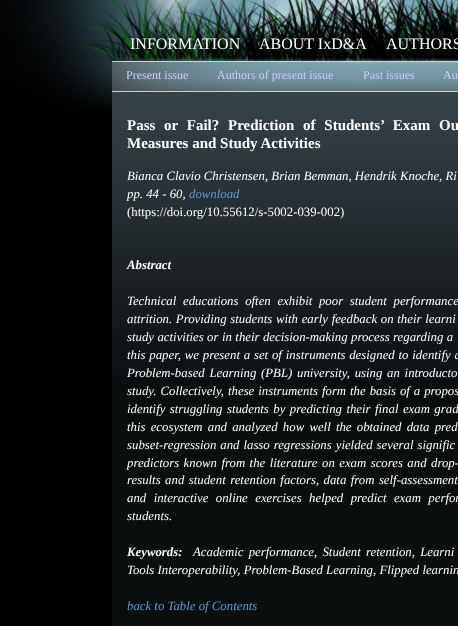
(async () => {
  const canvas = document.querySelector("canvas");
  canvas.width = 458;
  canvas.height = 626;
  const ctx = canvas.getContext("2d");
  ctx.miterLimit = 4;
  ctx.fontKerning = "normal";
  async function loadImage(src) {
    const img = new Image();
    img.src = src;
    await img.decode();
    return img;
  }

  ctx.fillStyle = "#000000";
  ctx.fillRect(0, 0, 458, 626);
  ctx.drawImage(await loadImage("img/1.png"), 0, 0, 458, 110);
  ctx.drawImage(await loadImage("img/2.png"), 74, 0, 384, 62);
  ctx.fillStyle = "#cdcbcb";
  ctx.fillRect(112, 61, 346, 1);
  ctx.drawImage(await loadImage("img/3.png"), 112, 61, 346, 30);
  ctx.fillRect(112, 91, 346, 1);
  ctx.fillStyle = "#0b0e0f";
  ctx.fillRect(112, 92, 346, 534);
  ctx.drawImage(await loadImage("img/4.png"), 112, 92, 346, 284);
  ctx.font = "16px Liberation Serif";
  ctx.fillStyle = "#ffffff";
  for (const [text, x, y] of [
    ["INFORMATION", 130, 49],
    ["ABOUT IxD&A", 259, 49],
    ["AUTHORS", 386, 49],
  ]) {
    ctx.fillText(text, x, y);
  }
  ctx.font = "12px Liberation Serif";
  ctx.fillStyle = "#ccccff";
  for (const [text, x, y] of [
    ["Present issue", 126, 79],
    ["Authors of present issue", 217, 79],
    ["Past issues", 363, 79],
    ["Au", 443, 79],
  ]) {
    ctx.fillText(text, x, y);
  }
  ctx.wordSpacing = "5px";
  ctx.font = "bold 15px Liberation Serif";
  ctx.fillStyle = "#ffffff";
  ctx.fillText("Pass or Fail? Prediction of Students’ Exam Ou", 127, 130);
  ctx.wordSpacing = "0px";
  ctx.fillText("Measures and Study Activities", 127, 148);
  ctx.font = "italic 12.8px Liberation Serif";
  ctx.fillText("Bianca Clavio Christensen, Brian Bemman, Hendrik Knoche, Ri", 127, 180);
  ctx.fillText("pp. 44 - 60,", 127, 198);
  ctx.fillStyle = "#6699cc";
  ctx.fillText("download", 189, 198);
  ctx.font = "12.8px Liberation Serif";
  ctx.fillStyle = "#ffffff";
  ctx.fillText("(https://doi.org/10.55612/s-5002-039-002)", 127, 216);
  ctx.font = "italic bold 12.8px Liberation Serif";
  ctx.fillText("Abstract", 127, 269);
  ctx.wordSpacing = "3.5px";
  ctx.font = "italic 12.8px Liberation Serif";
  ctx.fillText("Technical educations often exhibit poor student performance", 127, 305);
  ctx.wordSpacing = "0.5px";
  ctx.fillText("attrition. Providing students with early feedback on their learni", 127, 323);
  ctx.wordSpacing = "0.25px";
  ctx.fillText("study activities or in their decision-making process regarding a", 127, 341);
  ctx.wordSpacing = "0.6px";
  ctx.fillText("this paper, we present a set of instruments designed to identify a", 127, 359);
  ctx.wordSpacing = "1.5px";
  ctx.fillText("Problem-based Learning (PBL) university, using an introducto", 127, 377);
  ctx.wordSpacing = "0.75px";
  ctx.fillText("study. Collectively, these instruments form the basis of a propos", 127, 395);
  ctx.wordSpacing = "1.25px";
  ctx.fillText("identify struggling students by predicting their final exam grad", 127, 413);
  ctx.wordSpacing = "2px";
  ctx.fillText("this ecosystem and analyzed how well the obtained data pred", 127, 431);
  ctx.wordSpacing = "0.75px";
  ctx.fillText("subset-regression and lasso regressions yielded several signific", 127, 449);
  ctx.wordSpacing = "1.25px";
  ctx.fillText("predictors known from the literature on exam scores and drop-", 127, 467);
  ctx.fillText("results and student retention factors, data from self-assessment", 127, 484);
  ctx.wordSpacing = "4.25px";
  ctx.fillText("and interactive online exercises helped predict exam perfor", 127, 502);
  ctx.wordSpacing = "0px";
  ctx.fillText("students.", 127, 520);
  ctx.font = "italic bold 12.8px Liberation Serif";
  ctx.fillText("Keywords:", 127, 556);
  ctx.wordSpacing = "2px";
  ctx.font = "italic 12.8px Liberation Serif";
  ctx.fillText("Academic performance, Student retention, Learni", 193, 556);
  ctx.wordSpacing = "0px";
  ctx.fillText("Tools Interoperability, Problem-Based Learning, Flipped learnin", 127, 574);
  ctx.fillStyle = "#6699cc";
  ctx.fillText("back to Table of Contents", 127, 610);
})();
